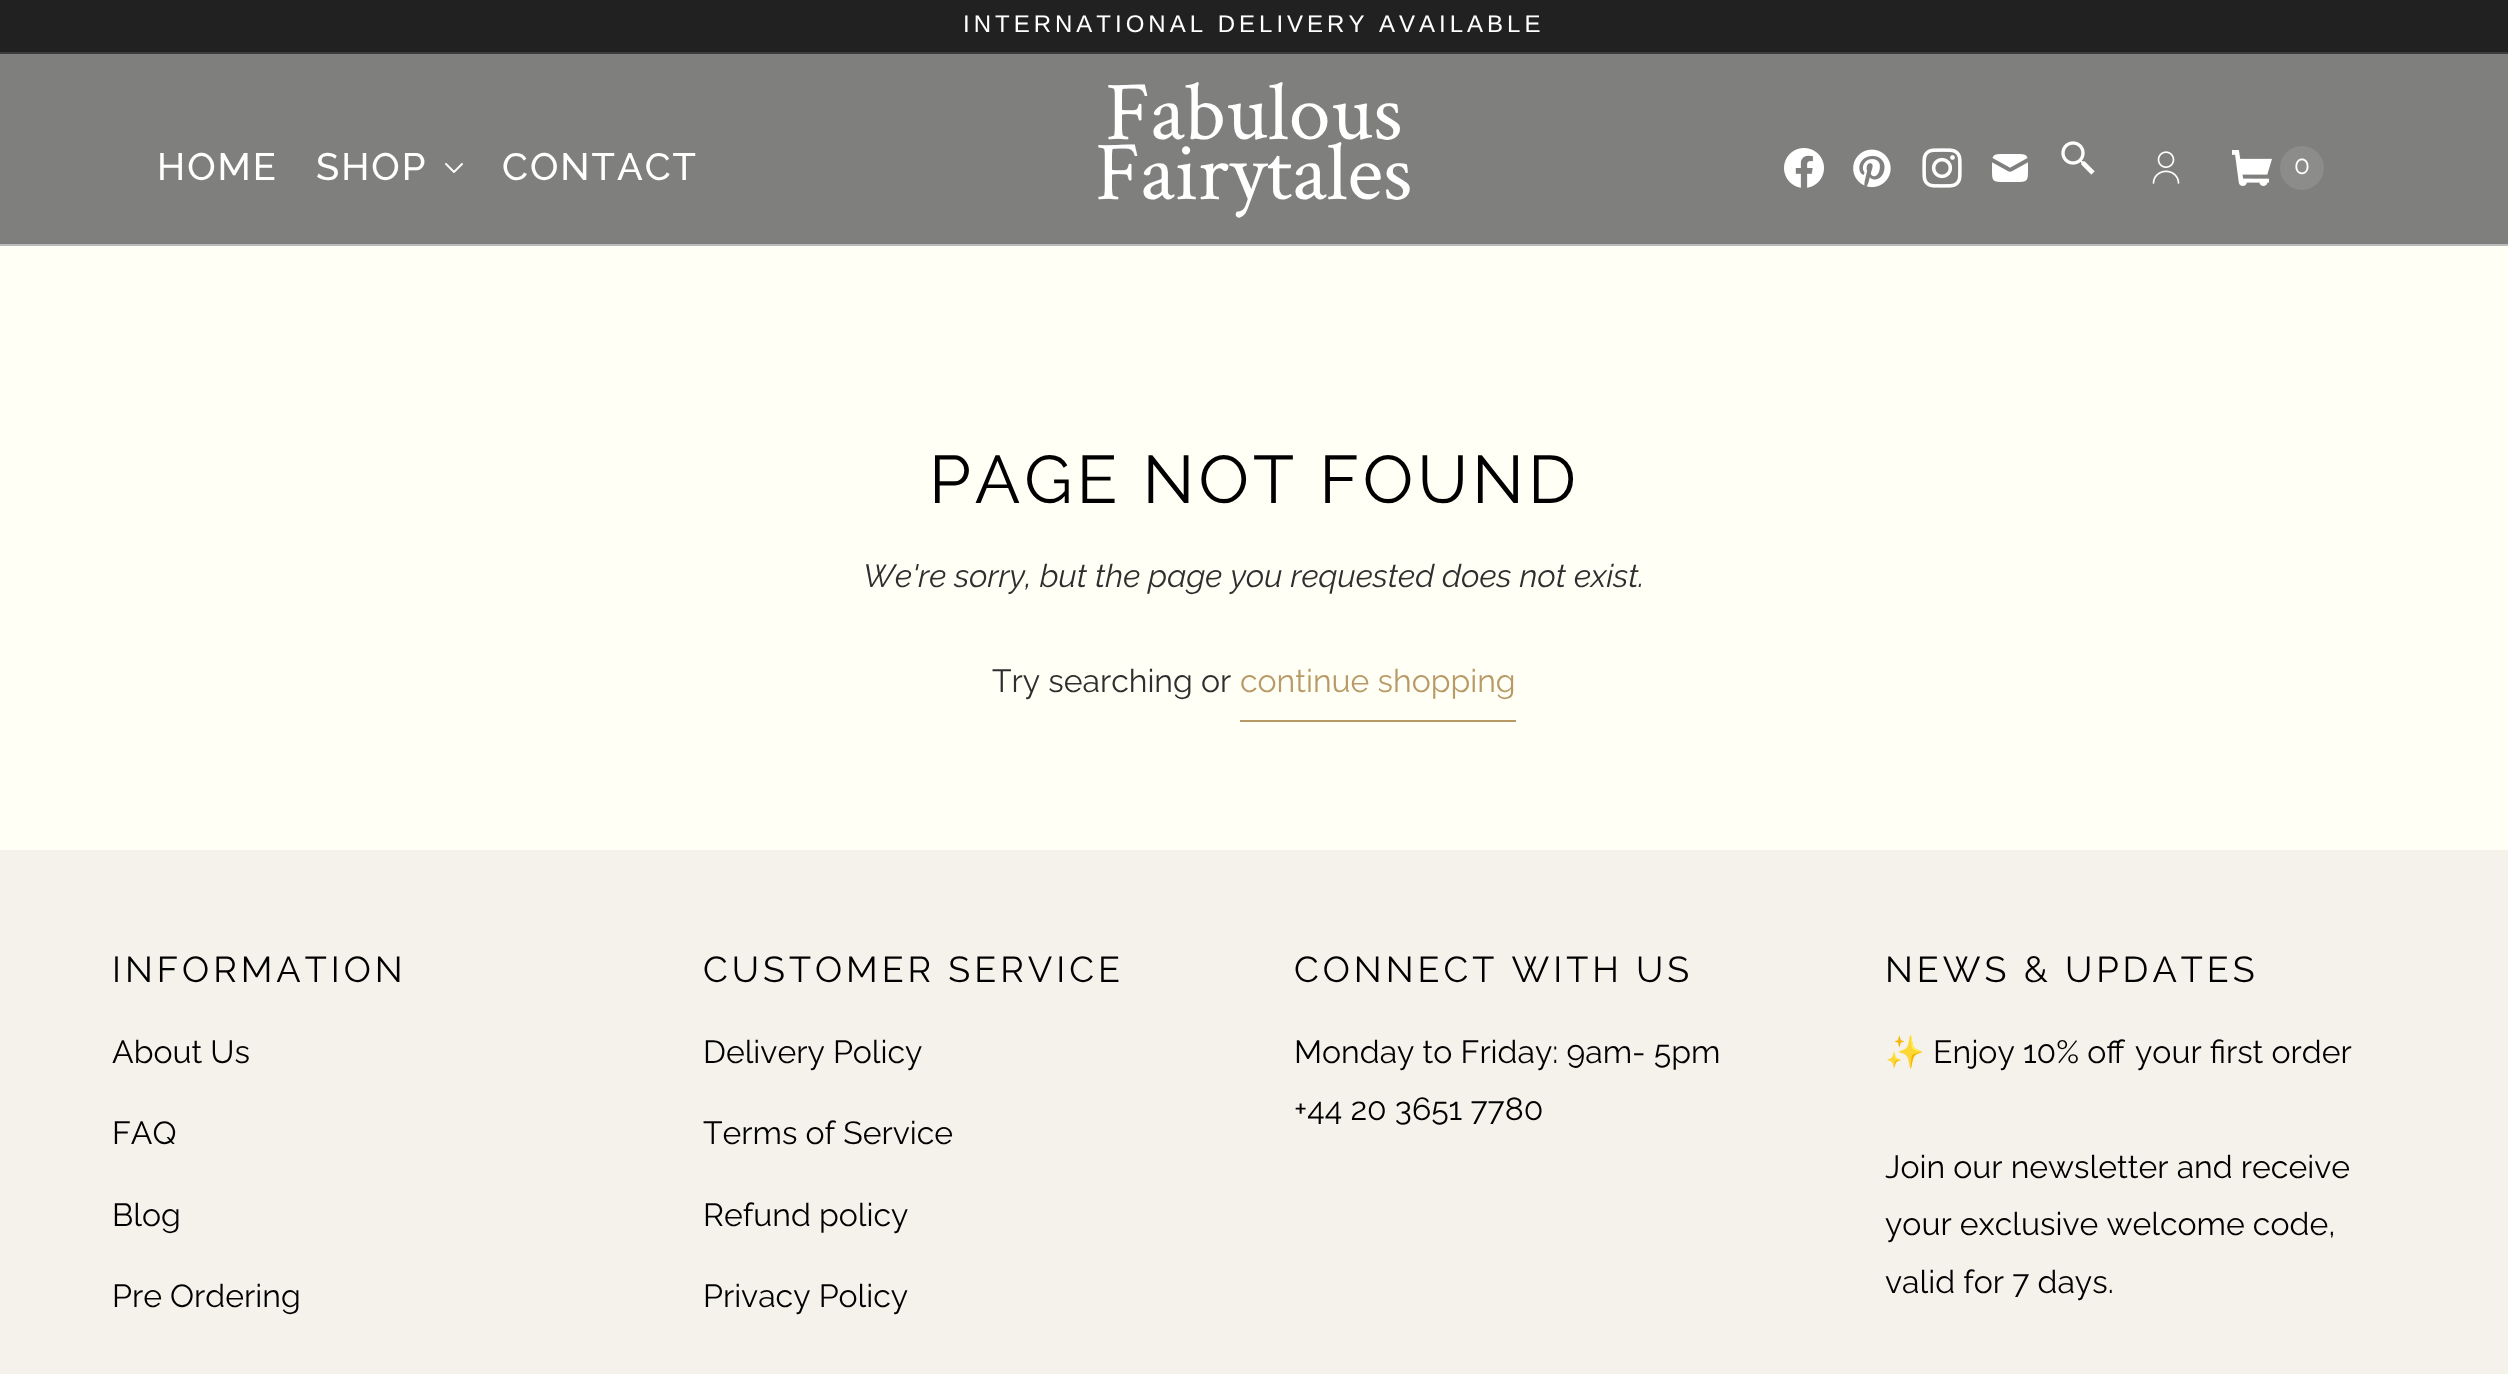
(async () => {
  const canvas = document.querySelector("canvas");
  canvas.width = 2508;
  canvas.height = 1374;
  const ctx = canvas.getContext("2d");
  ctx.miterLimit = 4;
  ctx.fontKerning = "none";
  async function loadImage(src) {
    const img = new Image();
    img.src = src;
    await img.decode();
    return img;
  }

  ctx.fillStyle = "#fffff6";
  ctx.fillRect(0, 0, 2508, 1374);
  for (const [x, y, w, h, color] of [
    [0, 0, 2508, 52, "#212121"],
    [0, 52, 2508, 2, "#3c3c3c"],
    [0, 54, 2508, 190, "#7f7f7e"],
    [0, 244, 2508, 2, "#bbbbbb"],
  ]) {
    ctx.fillStyle = color;
    ctx.fillRect(x, y, w, h);
  }
  ctx.drawImage(await loadImage("img/1.png"), 445, 163, 18, 10);
  ctx.drawImage(await loadImage("img/2.png"), 1784, 148, 40, 40);
  ctx.drawImage(await loadImage("img/3.png"), 1853, 149, 38, 39);
  ctx.drawImage(await loadImage("img/4.png"), 1922, 148, 40, 40);
  ctx.drawImage(await loadImage("img/5.png"), 1992, 154, 36, 28);
  ctx.drawImage(await loadImage("img/6.png"), 2061, 141, 34, 34);
  ctx.drawImage(await loadImage("img/7.png"), 2152, 151, 28, 33);
  ctx.drawImage(await loadImage("img/8.png"), 2232, 150, 40, 36);
  ctx.fillStyle = "#8c8c8b";
  ctx.beginPath();
  ctx.arc(2302, 168, 22, 0, Math.PI * 2);
  ctx.fill();
  ctx.fillStyle = "#b89a67";
  ctx.fillRect(1240, 720, 276, 2);
  ctx.fillStyle = "#f5f2eb";
  ctx.fillRect(0, 850, 2508, 524);
  ctx.letterSpacing = "4px";
  ctx.font = "24px Liberation Sans";
  ctx.fillStyle = "#ffffff";
  ctx.fillText("INTERNATIONAL DELIVERY", 963, 32);
  ctx.fillText("AVAILABLE", 1379, 32);
  ctx.letterSpacing = "2px";
  ctx.font = "500 38px Raleway";
  for (const [text, x, y] of [
    ["HOME", 157, 180],
    ["SHOP", 316, 180],
    ["CONTACT", 502, 180],
  ]) {
    ctx.fillText(text, x, y);
  }
  ctx.letterSpacing = "0px";
  ctx.font = "84px Crimson Text";
  ctx.fillText("Fabulous", 1105, 139);
  ctx.fillText("Fairytales", 1095, 199);
  ctx.font = "26px Raleway";
  ctx.fillText("0", 2294, 174);
  ctx.letterSpacing = "4px";
  ctx.font = "67.25px Raleway";
  ctx.fillStyle = "#000000";
  ctx.fillText("PAGE NOT FOUND", 929, 503);
  ctx.letterSpacing = "0px";
  ctx.font = "italic 32px Raleway";
  ctx.fillStyle = "#2e2e2e";
  ctx.fillText("We're sorry, but the page you requested", 863, 587);
  ctx.fillText("does not exist.", 1442, 587);
  ctx.font = "32px Raleway";
  ctx.fillText("Try searching or", 992, 692);
  ctx.fillStyle = "#b89a67";
  ctx.fillText("continue shopping", 1240, 692);
  ctx.letterSpacing = "4px";
  ctx.font = "36.1px Raleway";
  ctx.fillStyle = "#000000";
  ctx.fillText("INFORMATION", 112, 982);
  ctx.letterSpacing = "0px";
  ctx.font = "32px Raleway";
  for (const [text, x, y] of [
    ["About Us", 112, 1063],
    ["FAQ", 112, 1144],
    ["Blog", 112, 1226],
    ["Pre Ordering", 112, 1307],
  ]) {
    ctx.fillText(text, x, y);
  }
  ctx.letterSpacing = "4px";
  ctx.font = "36.1px Raleway";
  ctx.fillText("CUSTOMER SERVICE", 703, 982);
  ctx.letterSpacing = "0px";
  ctx.font = "32px Raleway";
  for (const [text, x, y] of [
    ["Delivery Policy", 703, 1063],
    ["Terms of Service", 703, 1144],
    ["Refund policy", 703, 1226],
    ["Privacy Policy", 703, 1307],
  ]) {
    ctx.fillText(text, x, y);
  }
  ctx.letterSpacing = "4px";
  ctx.font = "36.1px Raleway";
  ctx.fillText("CONNECT WITH US", 1294, 982);
  ctx.letterSpacing = "0px";
  ctx.font = "32px Raleway";
  ctx.fillText("Monday to Friday: 9am- 5pm", 1294, 1063);
  ctx.fillText("+44 20 3651 7780", 1294, 1120);
  ctx.letterSpacing = "4px";
  ctx.font = "36.1px Raleway";
  ctx.fillText("NEWS & UPDATES", 1885, 982);
  ctx.letterSpacing = "0px";
  ctx.font = "32px Noto Color Emoji";
  ctx.fillText("✨", 1885, 1063);
  ctx.font = "32px Raleway";
  for (const [text, x, y] of [
    ["Enjoy 10% off", 1933, 1063],
    ["your first order", 2135, 1063],
    ["Join our newsletter and receive", 1885, 1178],
    ["your exclusive welcome code,", 1885, 1235],
    ["valid for 7 days.", 1885, 1293],
  ]) {
    ctx.fillText(text, x, y);
  }
})();
